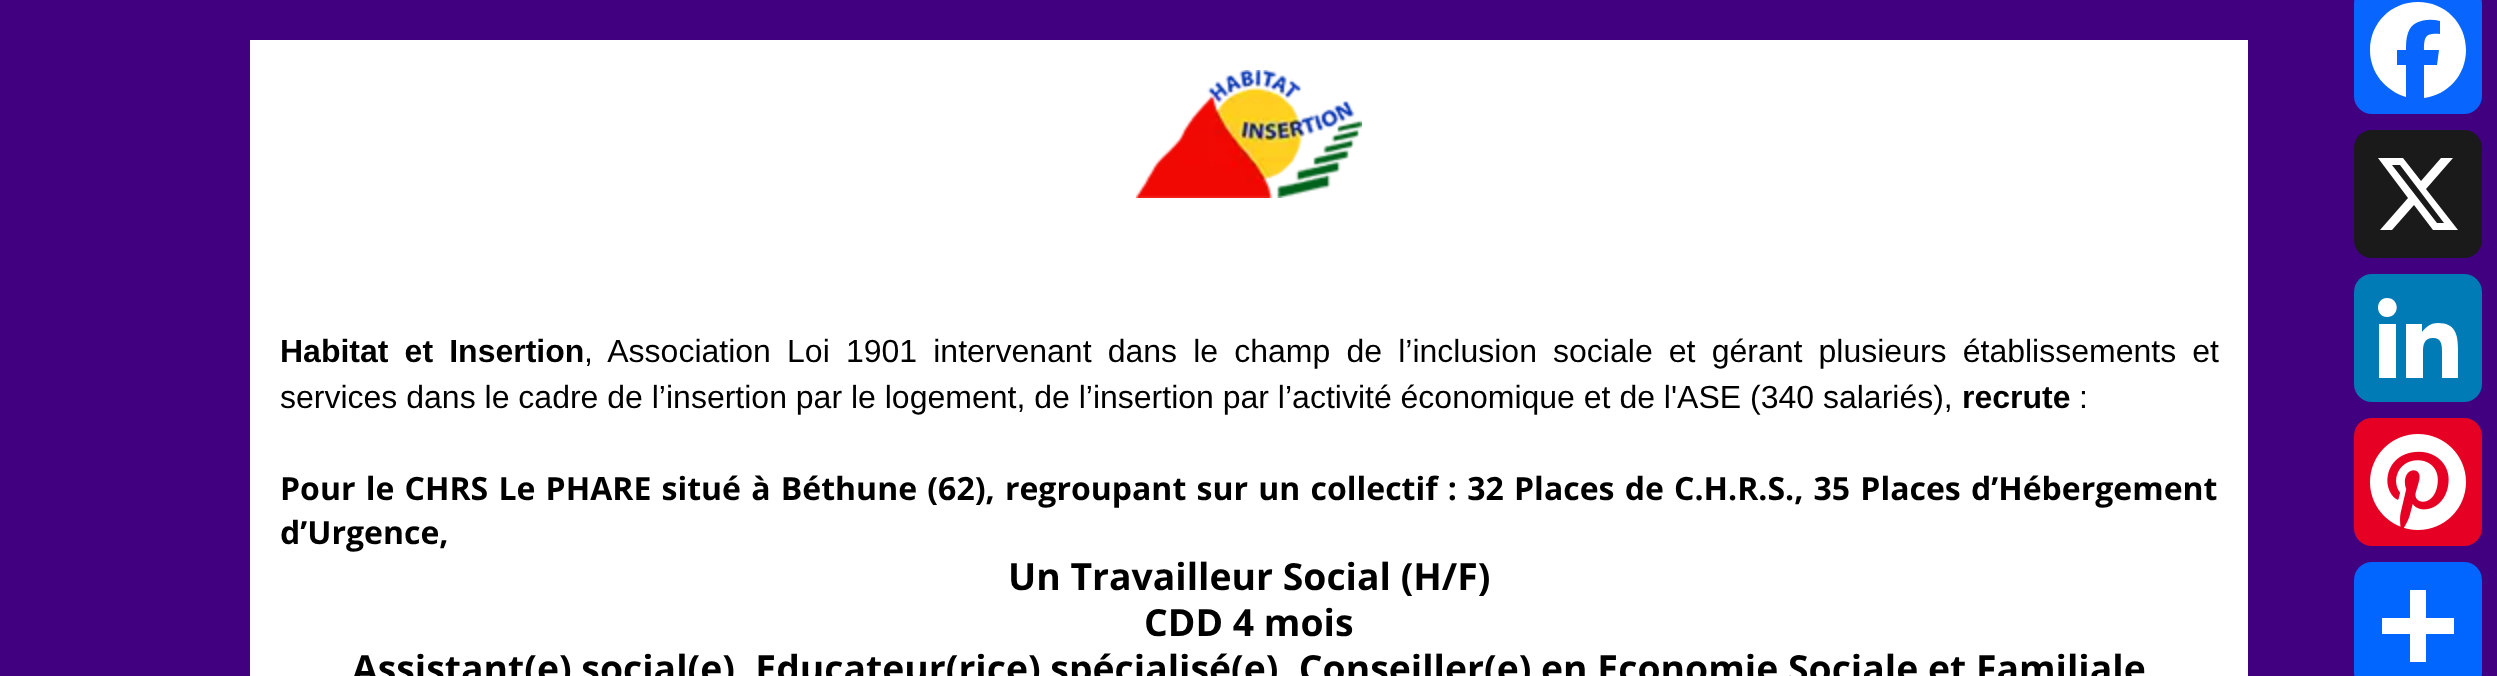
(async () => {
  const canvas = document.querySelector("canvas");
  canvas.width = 2497;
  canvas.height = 676;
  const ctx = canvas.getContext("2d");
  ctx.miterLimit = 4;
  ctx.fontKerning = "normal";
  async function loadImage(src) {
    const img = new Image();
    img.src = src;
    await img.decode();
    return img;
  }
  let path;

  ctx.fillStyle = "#400080";
  ctx.fillRect(0, 0, 2497, 676);
  ctx.fillStyle = "#ffffff";
  ctx.fillRect(250, 40, 1998, 636);
  ctx.drawImage(await loadImage("img/1.png"), 1136, 70, 226, 128);
  ctx.fillStyle = "#0866ff";
  ctx.beginPath();
  ctx.roundRect(2354, -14, 128, 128, 18);
  ctx.fill();
  ctx.fillStyle = "#ffffff";
  path = new Path2D("M2466 50C2466 23 2445 2 2418 2C2391 2 2370 23 2370 50C2370 73 2386 91 2406 97V65H2397V50H2406C2406 44 2406 39 2408 33C2412 20 2428 18 2440 21V34C2426 33 2424 36 2424 50H2439L2437 65H2424V98C2448 95 2466 75 2466 50");
  ctx.fill(path);
  ctx.fillStyle = "#1a1a1a";
  ctx.beginPath();
  ctx.roundRect(2354, 130, 128, 128, 18);
  ctx.fill();
  ctx.fillStyle = "#ffffff";
  path = new Path2D("M2441 158H2453L2426 189L2458 230H2433L2414 205L2392 230H2380L2408 198L2378 158H2403L2421 181ZM2437 223H2444L2400 165H2392Z");
  ctx.fill(path);
  ctx.fillStyle = "#007bb5";
  ctx.beginPath();
  ctx.roundRect(2354, 274, 128, 128, 18);
  ctx.fill();
  ctx.fillStyle = "#ffffff";
  path = new Path2D("M2379 324H2396V378H2379ZM2387 298C2400 298 2400 317 2387 317C2375 317 2375 298 2387 298M2406 324H2422V332C2425 328 2430 323 2438 323C2455 323 2458 334 2458 349V378H2442V352C2442 346 2442 338 2433 338C2424 338 2423 345 2423 352V378H2406Z");
  ctx.fill(path);
  ctx.fillStyle = "#e60023";
  ctx.beginPath();
  ctx.roundRect(2354, 418, 128, 128, 18);
  ctx.fill();
  ctx.drawImage(await loadImage("img/2.png"), 2370, 434, 96, 96);
  ctx.fillStyle = "#0166ff";
  ctx.beginPath();
  ctx.roundRect(2354, 562, 128, 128, 18);
  ctx.fill();
  ctx.fillStyle = "#ffffff";
  ctx.fillRect(2410, 590, 16, 72);
  ctx.fillRect(2382, 618, 72, 16);
  ctx.wordSpacing = "7.25px";
  ctx.font = "bold 32px Liberation Sans";
  ctx.fillStyle = "#000000";
  ctx.fillText("Habitat et Insertion", 280, 362);
  ctx.font = "32px Liberation Sans";
  ctx.fillText(", Association Loi 1901 intervenant dans le champ de l’inclusion sociale et gérant plusieurs établissements et", 584, 362);
  ctx.wordSpacing = "0px";
  ctx.fillText("services dans le cadre de l’insertion par le logement, de l’insertion par l’activité économique et de l'ASE (340 salariés),", 280, 408);
  ctx.font = "bold 32px Liberation Sans";
  ctx.fillText("recrute", 1962, 408);
  ctx.font = "32px Liberation Sans";
  ctx.fillText(":", 2079, 408);
  ctx.wordSpacing = "1.9px";
  ctx.font = "bold 32px Open Sans";
  ctx.fillText("Pour le CHRS Le PHARE situé à Béthune (62), regroupant sur un collectif : 32 Places de C.H.R.S., 35 Places d’Hébergement", 280, 500);
  ctx.wordSpacing = "0px";
  ctx.fillText("d’Urgence,", 280, 544);
  ctx.font = "bold 37.35px Open Sans";
  for (const [text, x, y] of [
    ["Un Travailleur Social (H/F)", 1008, 590],
    ["CDD 4 mois", 1144, 636],
    ["Assistant(e) social(e), Educateur(rice) spécialisé(e), Conseiller(e) en Economie Sociale et Familiale", 352, 682],
  ]) {
    ctx.fillText(text, x, y);
  }
})();
